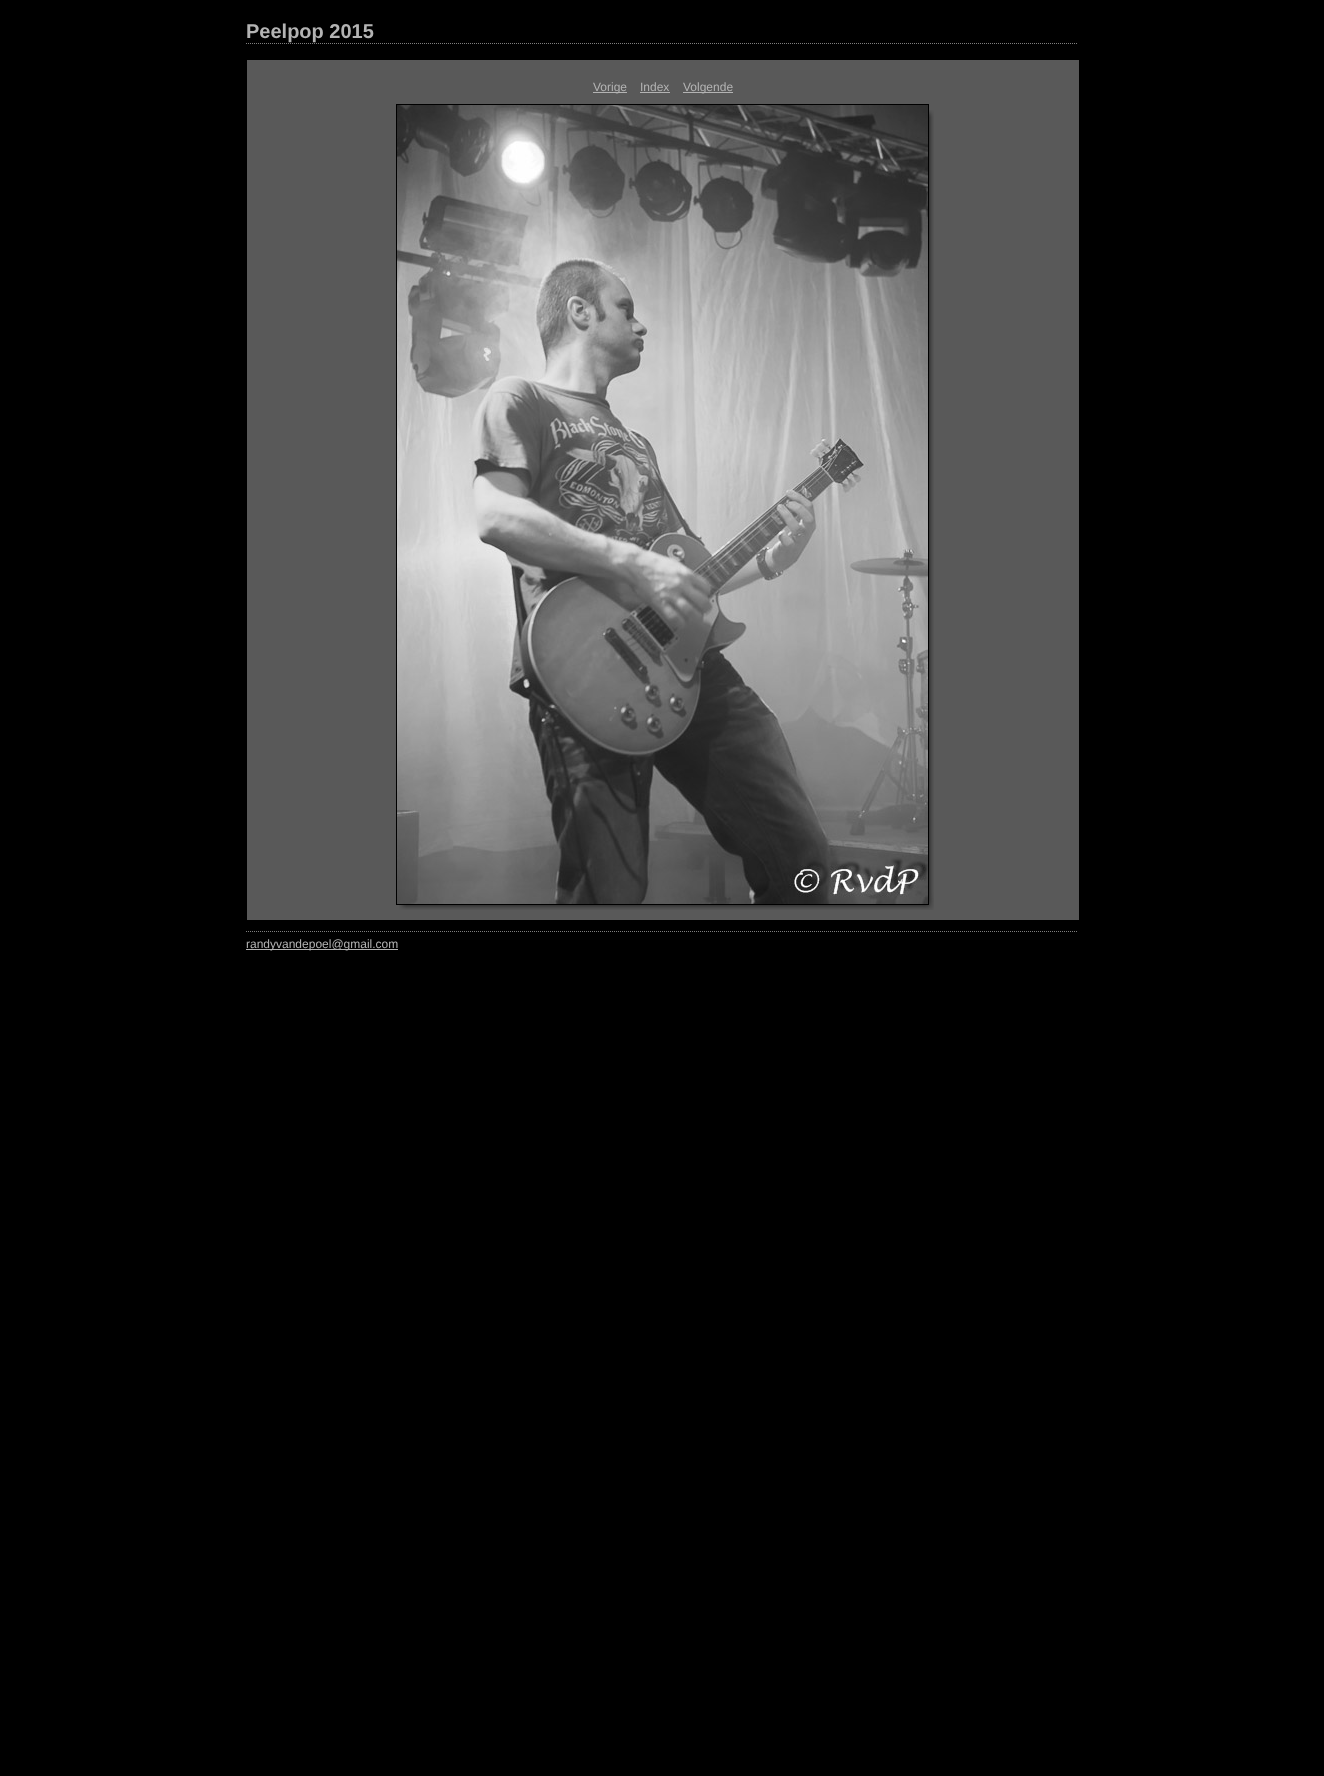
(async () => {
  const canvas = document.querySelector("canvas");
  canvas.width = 1324;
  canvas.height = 1776;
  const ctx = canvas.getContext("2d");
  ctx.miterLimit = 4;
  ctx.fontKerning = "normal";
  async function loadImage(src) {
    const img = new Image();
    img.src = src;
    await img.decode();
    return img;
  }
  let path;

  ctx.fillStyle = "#000000";
  ctx.fillRect(0, 0, 1324, 1776);
  path = new Path2D("M246 43.5H1078");
  ctx.strokeStyle = "#7f7f7f";
  ctx.setLineDash([1, 1]);
  ctx.stroke(path);
  path = new Path2D("M246 931.5H1078");
  ctx.stroke(path);
  for (const [x, y, w, h, color] of [
    [247, 60, 832, 860, "#595959"],
    [593, 92, 34, 1, "#b3b3b3"],
    [640, 92, 30, 1, "#b3b3b3"],
    [683, 92, 50, 1, "#b3b3b3"],
  ]) {
    ctx.fillStyle = color;
    ctx.fillRect(x, y, w, h);
  }
  ctx.drawImage(await loadImage("img/1.png"), 406, 117, 528, 793);
  ctx.strokeStyle = "#000000";
  ctx.setLineDash([]);
  ctx.strokeRect(396.5, 104.5, 532, 800);
  ctx.drawImage(await loadImage("img/2.png"), 397, 105, 531, 799);
  ctx.drawImage(await loadImage("img/3.png"), 929, 110, 5, 7);
  ctx.drawImage(await loadImage("img/4.png"), 399, 905, 7, 5);
  ctx.fillRect(246, 949, 152, 1);
  ctx.font = "bold 20px Liberation Sans";
  ctx.fillText("Peelpop 2015", 246, 38);
  ctx.font = "12px Liberation Sans";
  for (const [text, x, y] of [
    ["Vorige", 593, 91],
    ["Index", 640, 91],
    ["Volgende", 683, 91],
    ["randyvandepoel@gmail.com", 246, 948],
  ]) {
    ctx.fillText(text, x, y);
  }
})();
